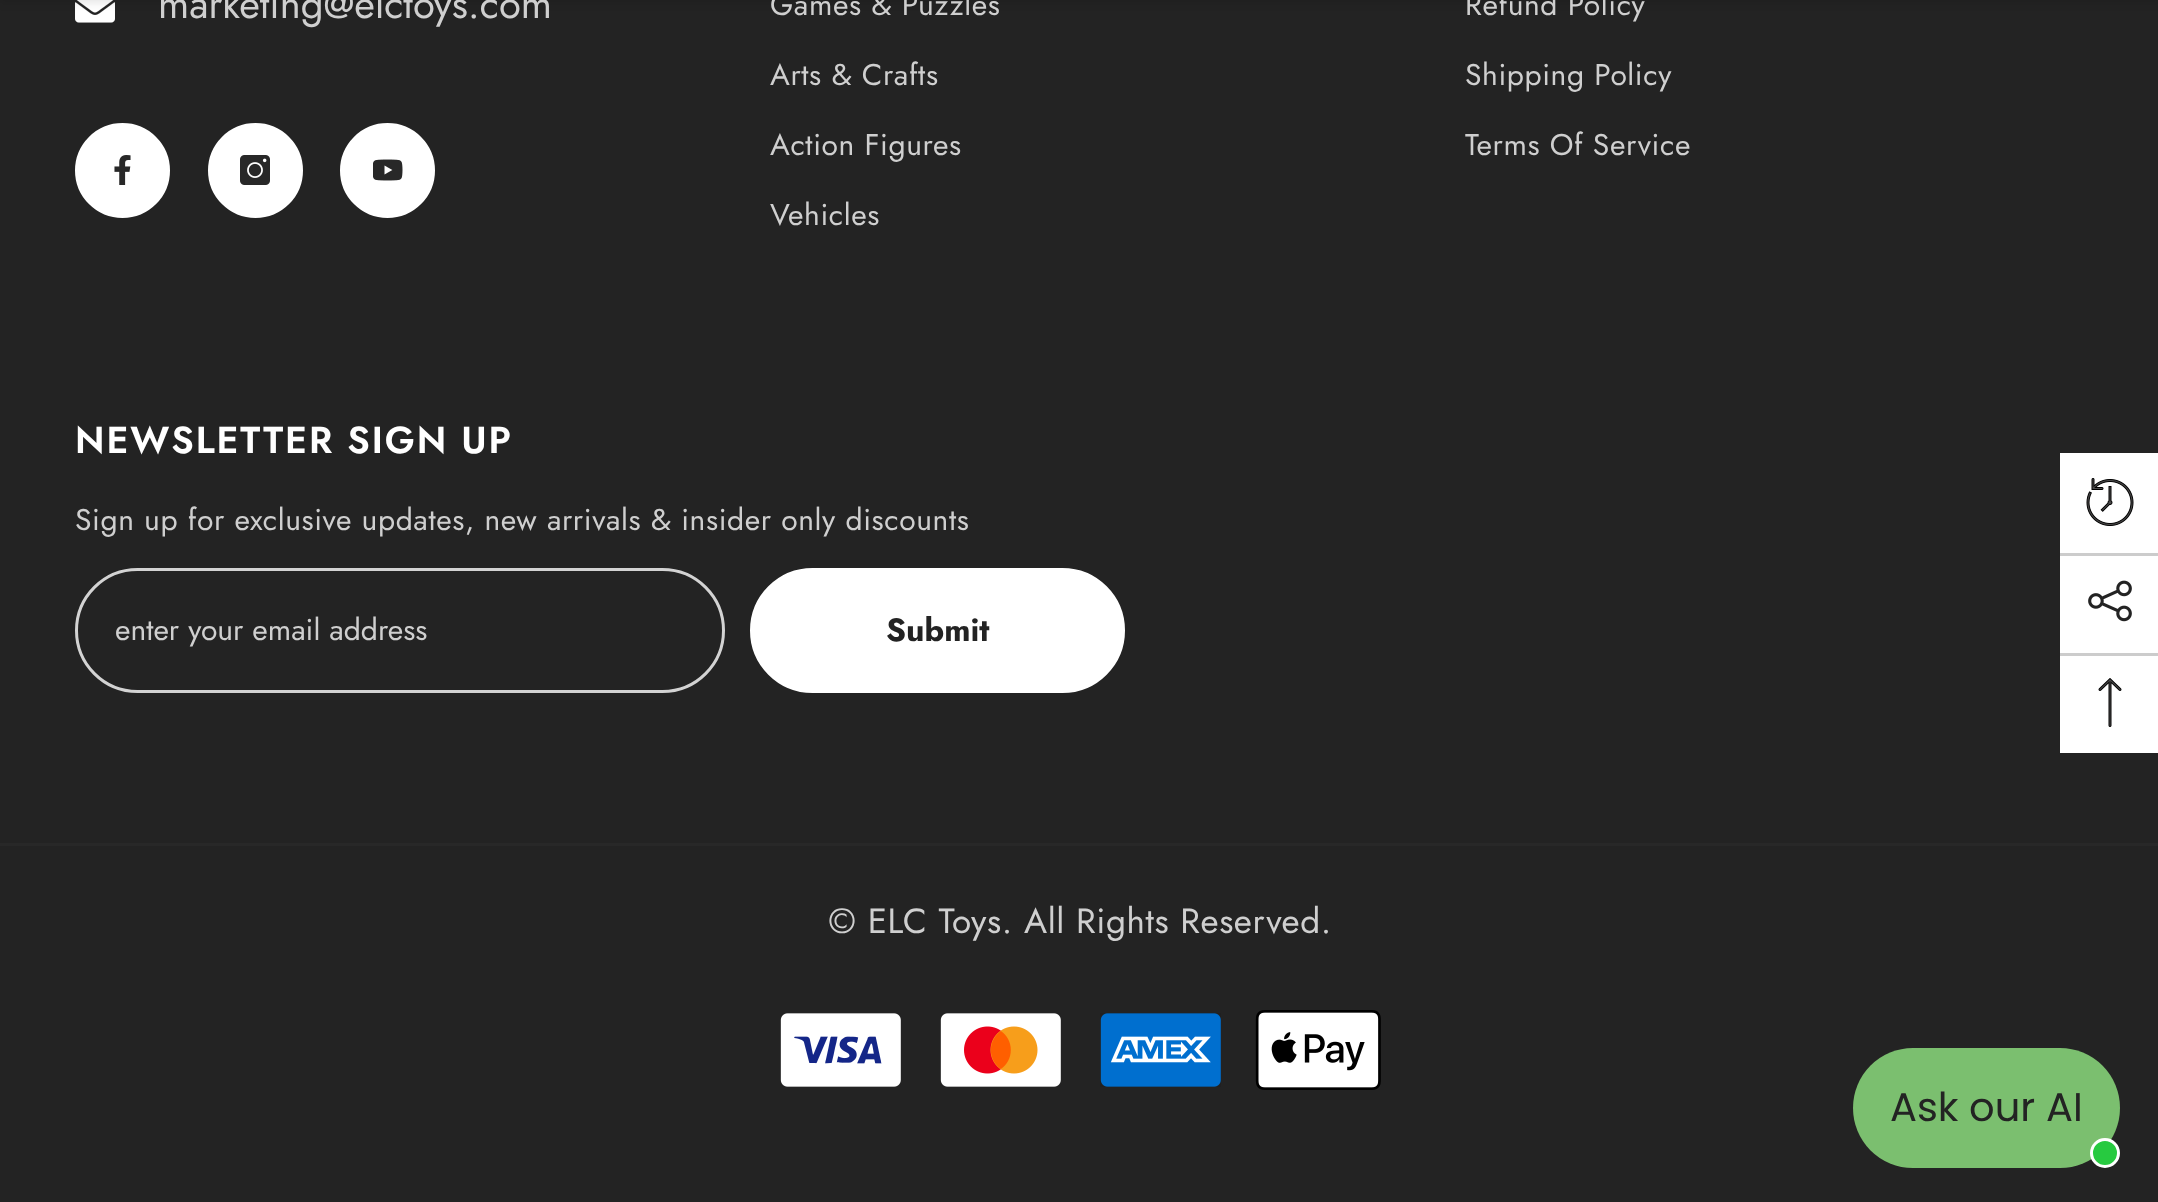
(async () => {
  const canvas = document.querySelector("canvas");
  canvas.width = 2158;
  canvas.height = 1202;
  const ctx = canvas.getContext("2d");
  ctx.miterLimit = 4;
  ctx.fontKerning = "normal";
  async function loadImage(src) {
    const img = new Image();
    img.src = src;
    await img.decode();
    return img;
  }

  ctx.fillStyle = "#232323";
  ctx.fillRect(0, 0, 2158, 1202);
  ctx.drawImage(await loadImage("img/1.png"), 75, 0, 40, 23);
  ctx.fillStyle = "rgba(0, 0, 0, 0.1)";
  ctx.filter = "blur(4px)";
  ctx.beginPath();
  ctx.rect(0, -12, 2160, 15);
  ctx.fill();
  ctx.filter = "none";
  ctx.fillStyle = "#ffffff";
  ctx.beginPath();
  ctx.arc(122.5, 170.5, 46, 0, Math.PI * 2);
  ctx.fill();
  ctx.strokeStyle = "#ffffff";
  ctx.lineWidth = 3;
  ctx.stroke();
  ctx.drawImage(await loadImage("img/2.png"), 114, 155, 17, 30);
  ctx.beginPath();
  ctx.arc(255.5, 170.5, 46, 0, Math.PI * 2);
  ctx.fill();
  ctx.stroke();
  ctx.drawImage(await loadImage("img/3.png"), 240, 155, 30, 30);
  ctx.beginPath();
  ctx.arc(387.5, 170.5, 46, 0, Math.PI * 2);
  ctx.fill();
  ctx.stroke();
  ctx.drawImage(await loadImage("img/4.png"), 373, 159, 30, 22);
  ctx.beginPath();
  ctx.roundRect(76.5, 569.5, 647, 122, 61);
  ctx.strokeStyle = "#d3d3d3";
  ctx.stroke();
  ctx.beginPath();
  ctx.roundRect(751.5, 569.5, 372, 122, 61);
  ctx.fill();
  ctx.strokeStyle = "#ffffff";
  ctx.stroke();
  ctx.fillStyle = "#282828";
  ctx.fillRect(0, 843, 2158, 3);
  ctx.drawImage(await loadImage("img/5.png"), 780, 1013, 121, 74);
  ctx.drawImage(await loadImage("img/6.png"), 940, 1013, 121, 74);
  ctx.drawImage(await loadImage("img/7.png"), 1100, 1013, 121, 74);
  ctx.drawImage(await loadImage("img/8.png"), 1255, 1010, 126, 80);
  ctx.fillStyle = "#ffffff";
  ctx.fillRect(2060, 453, 98, 300);
  ctx.drawImage(await loadImage("img/9.png"), 2086, 478, 48, 48);
  ctx.fillStyle = "#cccccc";
  ctx.fillRect(2060, 553, 98, 3);
  ctx.drawImage(await loadImage("img/10.png"), 2088, 580, 44, 42);
  ctx.fillRect(2060, 653, 98, 3);
  ctx.drawImage(await loadImage("img/11.png"), 2098, 678, 24, 49);
  ctx.fillStyle = "#7bbf6f";
  ctx.beginPath();
  ctx.roundRect(1853, 1048, 267, 120, 60);
  ctx.fill();
  ctx.fillStyle = "#27ca40";
  ctx.beginPath();
  ctx.arc(2105, 1153, 13.5, 0, Math.PI * 2);
  ctx.fill();
  ctx.stroke();
  ctx.font = "40px Jost";
  ctx.fillStyle = "#cfcfcf";
  ctx.fillText("marketing@elctoys.com", 158, 18);
  ctx.letterSpacing = "0.6px";
  ctx.font = "30px Jost";
  for (const [text, x, y] of [
    ["Games & Puzzles", 770, 15],
    ["Arts & Crafts", 770, 85],
    ["Action Figures", 770, 155],
    ["Vehicles", 770, 225],
    ["Refund Policy", 1465, 15],
    ["Shipping Policy", 1465, 85],
    ["Terms Of Service", 1465, 155],
  ]) {
    ctx.fillText(text, x, y);
  }
  ctx.letterSpacing = "1.9px";
  ctx.font = "600 37.5px Jost";
  ctx.fillStyle = "#ffffff";
  ctx.fillText("NEWSLETTER SIGN UP", 75, 453);
  ctx.letterSpacing = "0.6px";
  ctx.font = "30px Jost";
  ctx.fillStyle = "#cfcfcf";
  ctx.fillText("Sign up for exclusive updates, new arrivals & insider only discounts", 75, 530);
  ctx.letterSpacing = "0px";
  ctx.fillText("enter your email address", 115, 640);
  ctx.font = "bold 32px Jost";
  ctx.fillStyle = "#232323";
  ctx.fillText("Submit", 886, 641);
  ctx.letterSpacing = "0.6px";
  ctx.font = "35px Jost";
  ctx.fillStyle = "#cfcfcf";
  ctx.fillText("© ELC Toys. All Rights Reserved.", 828, 933);
  ctx.letterSpacing = "0px";
  ctx.font = "40px Poppins";
  ctx.fillStyle = "#232323";
  ctx.fillText("Ask our AI", 1890, 1121);
})();
